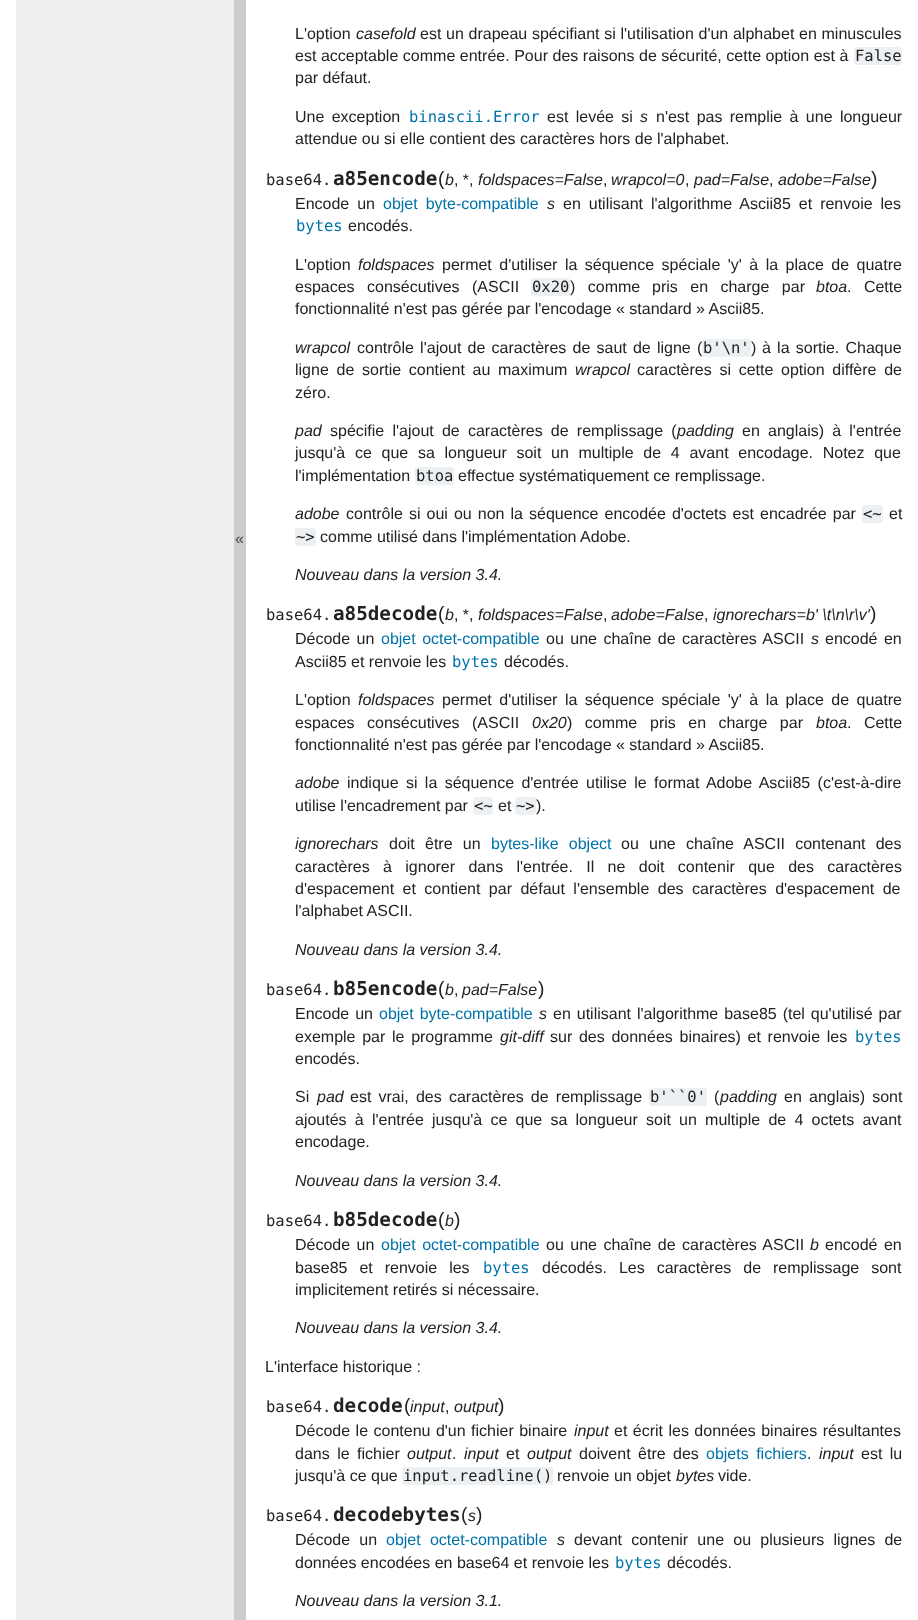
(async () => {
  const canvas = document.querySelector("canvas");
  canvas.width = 918;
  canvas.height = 1620;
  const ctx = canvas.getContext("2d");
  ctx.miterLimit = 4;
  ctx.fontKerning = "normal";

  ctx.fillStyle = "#ffffff";
  ctx.fillRect(0, 0, 918, 1620);
  ctx.fillStyle = "#eeeeee";
  ctx.fillRect(16, 0, 218, 1620);
  ctx.fillStyle = "#cccccc";
  ctx.fillRect(234, 0, 12, 1620);
  ctx.fillStyle = "#ecf0f3";
  ctx.beginPath();
  ctx.roundRect(854, 47, 48, 18, 3);
  ctx.fill();
  ctx.beginPath();
  ctx.roundRect(531, 278, 39, 18, 3);
  ctx.fill();
  ctx.beginPath();
  ctx.roundRect(415, 467, 39, 18, 3);
  ctx.fill();
  ctx.beginPath();
  ctx.roundRect(862, 505, 21, 18, 3);
  ctx.fill();
  ctx.beginPath();
  ctx.roundRect(295, 528, 21, 18, 3);
  ctx.fill();
  ctx.beginPath();
  ctx.roundRect(473, 797, 20, 18, 3);
  ctx.fill();
  ctx.beginPath();
  ctx.roundRect(515, 797, 21, 18, 3);
  ctx.fill();
  ctx.beginPath();
  ctx.roundRect(649, 1088, 58, 18, 3);
  ctx.fill();
  ctx.beginPath();
  ctx.roundRect(402, 1467, 151, 18, 3);
  ctx.fill();
  ctx.font = "16px Liberation Sans";
  ctx.fillStyle = "#444444";
  ctx.fillText("«", 235, 544);
  ctx.fillStyle = "#222222";
  ctx.fillText("L'option", 295, 39);
  ctx.font = "italic 16px Liberation Sans";
  ctx.fillText("casefold", 356, 39);
  ctx.wordSpacing = "0.25px";
  ctx.font = "16px Liberation Sans";
  ctx.fillText("est un drapeau spécifiant si l'utilisation d'un alphabet en minuscules", 420, 39);
  ctx.wordSpacing = "0.1px";
  ctx.fillText("est acceptable comme entrée. Pour des raisons de sécurité, cette option est à", 295, 61);
  ctx.wordSpacing = "0px";
  ctx.font = "15.5px DejaVu Sans Mono";
  ctx.fillText("False", 855, 61);
  ctx.font = "16px Liberation Sans";
  ctx.fillText("par défaut.", 295, 83);
  ctx.wordSpacing = "2.9px";
  ctx.fillText("Une exception", 295, 122);
  ctx.wordSpacing = "0px";
  ctx.font = "15.5px DejaVu Sans Mono";
  ctx.fillStyle = "#0072aa";
  ctx.fillText("binascii.Error", 409, 122);
  ctx.wordSpacing = "2.9px";
  ctx.font = "16px Liberation Sans";
  ctx.fillStyle = "#222222";
  ctx.fillText("est levée si", 547, 122);
  ctx.wordSpacing = "0px";
  ctx.font = "italic 16px Liberation Sans";
  ctx.fillText("s", 640, 122);
  ctx.wordSpacing = "2.9px";
  ctx.font = "16px Liberation Sans";
  ctx.fillText("n'est pas remplie à une longueur", 656, 122);
  ctx.wordSpacing = "0px";
  ctx.fillText("attendue ou si elle contient des caractères hors de l'alphabet.", 295, 144);
  ctx.font = "15.5px DejaVu Sans Mono";
  ctx.fillText("base64.", 266, 185);
  ctx.font = "bold 19.25px DejaVu Sans Mono";
  ctx.fillText("a85encode", 333, 185);
  ctx.font = "19.25px Liberation Sans";
  ctx.fillText("(", 438, 185);
  ctx.font = "italic 16px Liberation Sans";
  for (const [text, x, y] of [
    ["b", 445, 185],
    ["*", 462, 185],
    ["foldspaces=False", 478, 185],
    ["wrapcol=0", 611, 185],
    ["pad=False", 694, 185],
    ["adobe=False", 778, 185],
  ]) {
    ctx.fillText(text, x, y);
  }
  ctx.font = "19.25px Liberation Sans";
  ctx.fillText(")", 871, 185);
  ctx.font = "16px Liberation Sans";
  for (const [text, x, y] of [
    [",", 454, 185],
    [",", 469, 185],
    [",", 603, 185],
    [",", 685, 185],
    [",", 769, 185],
  ]) {
    ctx.fillText(text, x, y);
  }
  ctx.wordSpacing = "3.5px";
  ctx.fillText("Encode un", 295, 209);
  ctx.fillStyle = "#0072aa";
  ctx.fillText("objet byte-compatible", 383, 209);
  ctx.wordSpacing = "0px";
  ctx.font = "italic 16px Liberation Sans";
  ctx.fillStyle = "#222222";
  ctx.fillText("s", 547, 209);
  ctx.wordSpacing = "3.5px";
  ctx.font = "16px Liberation Sans";
  ctx.fillText("en utilisant l'algorithme Ascii85 et renvoie les", 563, 209);
  ctx.wordSpacing = "0px";
  ctx.font = "15.5px DejaVu Sans Mono";
  ctx.fillStyle = "#0072aa";
  ctx.fillText("bytes", 296, 231);
  ctx.font = "16px Liberation Sans";
  ctx.fillStyle = "#222222";
  ctx.fillText("encodés.", 348, 231);
  ctx.fillText("L'option", 295, 270);
  ctx.font = "italic 16px Liberation Sans";
  ctx.fillText("foldspaces", 358, 270);
  ctx.wordSpacing = "3px";
  ctx.font = "16px Liberation Sans";
  ctx.fillText("permet d'utiliser la séquence spéciale 'y' à la place de quatre", 442, 270);
  ctx.wordSpacing = "8px";
  ctx.fillText("espaces consécutives (ASCII", 295, 292);
  ctx.wordSpacing = "0px";
  ctx.font = "15.5px DejaVu Sans Mono";
  ctx.fillText("0x20", 532, 292);
  ctx.wordSpacing = "8px";
  ctx.font = "16px Liberation Sans";
  ctx.fillText(") comme", 570, 292);
  ctx.fillText("pris en charge par", 652, 292);
  ctx.wordSpacing = "0px";
  ctx.font = "italic 16px Liberation Sans";
  ctx.fillText("btoa", 816, 292);
  ctx.wordSpacing = "8px";
  ctx.font = "16px Liberation Sans";
  ctx.fillText(". Cette", 847, 292);
  ctx.wordSpacing = "0px";
  ctx.fillText("fonctionnalité n'est pas gérée par l'encodage « standard » Ascii85.", 295, 314);
  ctx.font = "italic 16px Liberation Sans";
  ctx.fillText("wrapcol", 295, 353);
  ctx.wordSpacing = "1.75px";
  ctx.font = "16px Liberation Sans";
  ctx.fillText("contrôle l'ajout de caractères de saut de ligne (", 357, 353);
  ctx.fillStyle = "#ecf0f3";
  ctx.beginPath();
  ctx.roundRect(702, 339, 49, 18, 3);
  ctx.fill();
  ctx.wordSpacing = "0px";
  ctx.font = "15.5px DejaVu Sans Mono";
  ctx.fillStyle = "#222222";
  ctx.fillText("b'\\n'", 703, 353);
  ctx.font = "16px Liberation Sans";
  ctx.fillText(")", 751, 353);
  ctx.wordSpacing = "1.75px";
  ctx.fillText("à la sortie. Chaque", 762, 353);
  ctx.wordSpacing = "3.25px";
  ctx.fillText("ligne de sortie contient au maximum", 295, 375);
  ctx.wordSpacing = "0px";
  ctx.font = "italic 16px Liberation Sans";
  ctx.fillText("wrapcol", 575, 375);
  ctx.wordSpacing = "3.25px";
  ctx.font = "16px Liberation Sans";
  ctx.fillText("caractères si cette option diffère de", 637, 375);
  ctx.wordSpacing = "0px";
  ctx.fillText("zéro.", 295, 398);
  ctx.font = "italic 16px Liberation Sans";
  ctx.fillText("pad", 295, 436);
  ctx.wordSpacing = "3.75px";
  ctx.font = "16px Liberation Sans";
  ctx.fillText("spécifie l'ajout de caractères de remplissage (", 330, 436);
  ctx.wordSpacing = "0px";
  ctx.font = "italic 16px Liberation Sans";
  ctx.fillText("padding", 677, 436);
  ctx.wordSpacing = "3.75px";
  ctx.font = "16px Liberation Sans";
  ctx.fillText("en anglais) à l'entrée", 742, 436);
  ctx.wordSpacing = "5.25px";
  ctx.fillText("jusqu'à ce que sa longueur soit un multiple de 4 avant encodage. Notez que", 295, 458);
  ctx.wordSpacing = "0px";
  ctx.fillText("l'implémentation", 295, 481);
  ctx.font = "15.5px DejaVu Sans Mono";
  ctx.fillText("btoa", 416, 481);
  ctx.font = "16px Liberation Sans";
  ctx.fillText("effectue systématiquement ce remplissage.", 458, 481);
  ctx.font = "italic 16px Liberation Sans";
  ctx.fillText("adobe", 295, 519);
  ctx.wordSpacing = "1.6px";
  ctx.font = "16px Liberation Sans";
  ctx.fillText("contrôle si oui ou non la séquence encodée d'octets est encadrée par", 346, 519);
  ctx.wordSpacing = "0px";
  ctx.font = "15.5px DejaVu Sans Mono";
  ctx.fillText("<~", 863, 519);
  ctx.font = "16px Liberation Sans";
  ctx.fillText("et", 889, 519);
  ctx.font = "15.5px DejaVu Sans Mono";
  ctx.fillText("~>", 296, 542);
  ctx.font = "16px Liberation Sans";
  ctx.fillText("comme utilisé dans l'implémentation Adobe.", 320, 542);
  ctx.font = "italic 16px Liberation Sans";
  ctx.fillText("Nouveau dans la version 3.4.", 295, 580);
  ctx.font = "15.5px DejaVu Sans Mono";
  ctx.fillText("base64.", 266, 620);
  ctx.font = "bold 19.25px DejaVu Sans Mono";
  ctx.fillText("a85decode", 333, 620);
  ctx.font = "19.25px Liberation Sans";
  ctx.fillText("(", 438, 620);
  ctx.font = "italic 16px Liberation Sans";
  for (const [text, x, y] of [
    ["b", 445, 620],
    ["*", 462, 620],
    ["foldspaces=False", 478, 620],
    ["adobe=False", 611, 620],
    ["ignorechars=b' \\t\\n\\r\\v'", 713, 620],
  ]) {
    ctx.fillText(text, x, y);
  }
  ctx.font = "19.25px Liberation Sans";
  ctx.fillText(")", 870, 620);
  ctx.font = "16px Liberation Sans";
  for (const [text, x, y] of [
    [",", 454, 620],
    [",", 469, 620],
    [",", 603, 620],
    [",", 704, 620],
  ]) {
    ctx.fillText(text, x, y);
  }
  ctx.wordSpacing = "2px";
  ctx.fillText("Décode un", 295, 644);
  ctx.fillStyle = "#0072aa";
  ctx.fillText("objet octet-compatible", 381, 644);
  ctx.fillStyle = "#222222";
  ctx.fillText("ou une chaîne de caractères ASCII", 546, 644);
  ctx.wordSpacing = "0px";
  ctx.font = "italic 16px Liberation Sans";
  ctx.fillText("s", 811, 644);
  ctx.wordSpacing = "2px";
  ctx.font = "16px Liberation Sans";
  ctx.fillText("encodé en", 825, 644);
  ctx.wordSpacing = "0px";
  ctx.fillText("Ascii85 et renvoie les", 295, 667);
  ctx.font = "15.5px DejaVu Sans Mono";
  ctx.fillStyle = "#0072aa";
  ctx.fillText("bytes", 452, 667);
  ctx.font = "16px Liberation Sans";
  ctx.fillStyle = "#222222";
  ctx.fillText("décodés.", 504, 667);
  ctx.fillText("L'option", 295, 705);
  ctx.font = "italic 16px Liberation Sans";
  ctx.fillText("foldspaces", 358, 705);
  ctx.wordSpacing = "3px";
  ctx.font = "16px Liberation Sans";
  ctx.fillText("permet d'utiliser la séquence spéciale 'y' à la place de quatre", 442, 705);
  ctx.wordSpacing = "8px";
  ctx.fillText("espaces consécutives (ASCII", 295, 728);
  ctx.wordSpacing = "0px";
  ctx.font = "italic 16px Liberation Sans";
  ctx.fillText("0x20", 532, 728);
  ctx.wordSpacing = "8px";
  ctx.font = "16px Liberation Sans";
  ctx.fillText(") comme", 567, 728);
  ctx.fillText("pris en charge par", 650, 728);
  ctx.wordSpacing = "0px";
  ctx.font = "italic 16px Liberation Sans";
  ctx.fillText("btoa", 816, 728);
  ctx.wordSpacing = "8px";
  ctx.font = "16px Liberation Sans";
  ctx.fillText(". Cette", 847, 728);
  ctx.wordSpacing = "0px";
  ctx.fillText("fonctionnalité n'est pas gérée par l'encodage « standard » Ascii85.", 295, 750);
  ctx.font = "italic 16px Liberation Sans";
  ctx.fillText("adobe", 295, 788);
  ctx.wordSpacing = "2.9px";
  ctx.font = "16px Liberation Sans";
  ctx.fillText("indique si la séquence d'entrée utilise le format Adobe Ascii85 (c'est-à-dire", 347, 788);
  ctx.wordSpacing = "0px";
  ctx.fillText("utilise l'encadrement par", 295, 811);
  ctx.font = "15.5px DejaVu Sans Mono";
  ctx.fillText("<~", 474, 811);
  ctx.font = "16px Liberation Sans";
  ctx.fillText("et", 498, 811);
  ctx.font = "15.5px DejaVu Sans Mono";
  ctx.fillText("~>", 516, 811);
  ctx.font = "16px Liberation Sans";
  ctx.fillText(").", 536, 811);
  ctx.font = "italic 16px Liberation Sans";
  ctx.fillText("ignorechars", 295, 849);
  ctx.wordSpacing = "5.75px";
  ctx.font = "16px Liberation Sans";
  ctx.fillText("doit être un", 389, 849);
  ctx.fillStyle = "#0072aa";
  ctx.fillText("bytes-like object", 491, 849);
  ctx.fillStyle = "#222222";
  ctx.fillText("ou une chaîne ASCII contenant des", 621, 849);
  ctx.wordSpacing = "8.9px";
  ctx.fillText("caractères à ignorer dans l'entrée. Il ne doit contenir que des caractères", 295, 872);
  ctx.wordSpacing = "4px";
  ctx.fillText("d'espacement et contient par défaut l'ensemble des caractères d'espacement de", 295, 894);
  ctx.wordSpacing = "0px";
  ctx.fillText("l'alphabet ASCII.", 295, 916);
  ctx.font = "italic 16px Liberation Sans";
  ctx.fillText("Nouveau dans la version 3.4.", 295, 955);
  ctx.font = "15.5px DejaVu Sans Mono";
  ctx.fillText("base64.", 266, 995);
  ctx.font = "bold 19.25px DejaVu Sans Mono";
  ctx.fillText("b85encode", 333, 995);
  ctx.font = "19.25px Liberation Sans";
  ctx.fillText("(", 438, 995);
  ctx.font = "italic 16px Liberation Sans";
  ctx.fillText("b", 445, 995);
  ctx.font = "16px Liberation Sans";
  ctx.fillText(",", 454, 995);
  ctx.font = "italic 16px Liberation Sans";
  ctx.fillText("pad=False", 462, 995);
  ctx.font = "19.25px Liberation Sans";
  ctx.fillText(")", 538, 995);
  ctx.wordSpacing = "1.5px";
  ctx.font = "16px Liberation Sans";
  ctx.fillText("Encode un", 295, 1019);
  ctx.fillStyle = "#0072aa";
  ctx.fillText("objet byte-compatible", 379, 1019);
  ctx.wordSpacing = "0px";
  ctx.font = "italic 16px Liberation Sans";
  ctx.fillStyle = "#222222";
  ctx.fillText("s", 539, 1019);
  ctx.wordSpacing = "1.5px";
  ctx.font = "16px Liberation Sans";
  ctx.fillText("en utilisant l'algorithme base85 (tel qu'utilisé par", 553, 1019);
  ctx.wordSpacing = "2.25px";
  ctx.fillText("exemple par le programme", 295, 1042);
  ctx.wordSpacing = "0px";
  ctx.font = "italic 16px Liberation Sans";
  ctx.fillText("git-diff", 500, 1042);
  ctx.wordSpacing = "2.25px";
  ctx.font = "16px Liberation Sans";
  ctx.fillText("sur des données binaires) et renvoie les", 550, 1042);
  ctx.wordSpacing = "0px";
  ctx.font = "15.5px DejaVu Sans Mono";
  ctx.fillStyle = "#0072aa";
  ctx.fillText("bytes", 855, 1042);
  ctx.font = "16px Liberation Sans";
  ctx.fillStyle = "#222222";
  ctx.fillText("encodés.", 295, 1064);
  ctx.fillText("Si", 295, 1102);
  ctx.font = "italic 16px Liberation Sans";
  ctx.fillText("pad", 317, 1102);
  ctx.wordSpacing = "2.75px";
  ctx.font = "16px Liberation Sans";
  ctx.fillText("est vrai, des caractères de remplissage", 350, 1102);
  ctx.wordSpacing = "0px";
  ctx.font = "15.5px DejaVu Sans Mono";
  ctx.fillText("b'``0'", 650, 1102);
  ctx.font = "16px Liberation Sans";
  ctx.fillText("(", 714, 1102);
  ctx.font = "italic 16px Liberation Sans";
  ctx.fillText("padding", 720, 1102);
  ctx.wordSpacing = "2.75px";
  ctx.font = "16px Liberation Sans";
  ctx.fillText("en anglais) sont", 784, 1102);
  ctx.wordSpacing = "3.75px";
  ctx.fillText("ajoutés à l'entrée jusqu'à ce que sa longueur soit un multiple de 4 octets avant", 295, 1125);
  ctx.wordSpacing = "0px";
  ctx.fillText("encodage.", 295, 1147);
  ctx.font = "italic 16px Liberation Sans";
  ctx.fillText("Nouveau dans la version 3.4.", 295, 1186);
  ctx.font = "15.5px DejaVu Sans Mono";
  ctx.fillText("base64.", 266, 1226);
  ctx.font = "bold 19.25px DejaVu Sans Mono";
  ctx.fillText("b85decode", 333, 1226);
  ctx.font = "19.25px Liberation Sans";
  ctx.fillText("(", 438, 1226);
  ctx.font = "italic 16px Liberation Sans";
  ctx.fillText("b", 445, 1226);
  ctx.font = "19.25px Liberation Sans";
  ctx.fillText(")", 454, 1226);
  ctx.wordSpacing = "2px";
  ctx.font = "16px Liberation Sans";
  ctx.fillText("Décode un", 295, 1250);
  ctx.fillStyle = "#0072aa";
  ctx.fillText("objet octet-compatible", 381, 1250);
  ctx.fillStyle = "#222222";
  ctx.fillText("ou une chaîne de caractères ASCII", 546, 1250);
  ctx.wordSpacing = "0px";
  ctx.font = "italic 16px Liberation Sans";
  ctx.fillText("b", 810, 1250);
  ctx.wordSpacing = "2px";
  ctx.font = "16px Liberation Sans";
  ctx.fillText("encodé en", 825, 1250);
  ctx.wordSpacing = "7.5px";
  ctx.fillText("base85 et renvoie les", 295, 1273);
  ctx.wordSpacing = "0px";
  ctx.font = "15.5px DejaVu Sans Mono";
  ctx.fillStyle = "#0072aa";
  ctx.fillText("bytes", 483, 1273);
  ctx.wordSpacing = "7.5px";
  ctx.font = "16px Liberation Sans";
  ctx.fillStyle = "#222222";
  ctx.fillText("décodés. Les caractères de remplissage sont", 542, 1273);
  ctx.wordSpacing = "0px";
  ctx.fillText("implicitement retirés si nécessaire.", 295, 1295);
  ctx.font = "italic 16px Liberation Sans";
  ctx.fillText("Nouveau dans la version 3.4.", 295, 1333);
  ctx.font = "16px Liberation Sans";
  ctx.fillText("L'interface historique :", 265, 1372);
  ctx.font = "15.5px DejaVu Sans Mono";
  ctx.fillText("base64.", 266, 1412);
  ctx.font = "bold 19.25px DejaVu Sans Mono";
  ctx.fillText("decode", 333, 1412);
  ctx.font = "19.25px Liberation Sans";
  ctx.fillText("(", 404, 1412);
  ctx.font = "italic 16px Liberation Sans";
  ctx.fillText("input", 410, 1412);
  ctx.font = "16px Liberation Sans";
  ctx.fillText(",", 445, 1412);
  ctx.font = "italic 16px Liberation Sans";
  ctx.fillText("output", 454, 1412);
  ctx.font = "19.25px Liberation Sans";
  ctx.fillText(")", 498, 1412);
  ctx.wordSpacing = "1px";
  ctx.font = "16px Liberation Sans";
  ctx.fillText("Décode le contenu d'un fichier binaire", 295, 1436);
  ctx.wordSpacing = "0px";
  ctx.font = "italic 16px Liberation Sans";
  ctx.fillText("input", 574, 1436);
  ctx.wordSpacing = "1px";
  ctx.font = "16px Liberation Sans";
  ctx.fillText("et écrit les données binaires résultantes", 614, 1436);
  ctx.wordSpacing = "3px";
  ctx.fillText("dans le fichier", 295, 1459);
  ctx.wordSpacing = "0px";
  ctx.font = "italic 16px Liberation Sans";
  ctx.fillText("output", 407, 1459);
  ctx.font = "16px Liberation Sans";
  ctx.fillText(".", 452, 1459);
  ctx.font = "italic 16px Liberation Sans";
  ctx.fillText("input", 464, 1459);
  ctx.font = "16px Liberation Sans";
  ctx.fillText("et", 506, 1459);
  ctx.font = "italic 16px Liberation Sans";
  ctx.fillText("output", 527, 1459);
  ctx.wordSpacing = "3px";
  ctx.font = "16px Liberation Sans";
  ctx.fillText("doivent être des", 579, 1459);
  ctx.fillStyle = "#0072aa";
  ctx.fillText("objets fichiers", 706, 1459);
  ctx.wordSpacing = "0px";
  ctx.fillStyle = "#222222";
  ctx.fillText(".", 807, 1459);
  ctx.font = "italic 16px Liberation Sans";
  ctx.fillText("input", 819, 1459);
  ctx.wordSpacing = "3px";
  ctx.font = "16px Liberation Sans";
  ctx.fillText("est lu", 861, 1459);
  ctx.wordSpacing = "0px";
  ctx.fillText("jusqu'à ce que", 295, 1481);
  ctx.font = "15.5px DejaVu Sans Mono";
  ctx.fillText("input.readline()", 403, 1481);
  ctx.font = "16px Liberation Sans";
  ctx.fillText("renvoie un objet", 557, 1481);
  ctx.font = "italic 16px Liberation Sans";
  ctx.fillText("bytes", 676, 1481);
  ctx.font = "16px Liberation Sans";
  ctx.fillText("vide.", 718, 1481);
  ctx.font = "15.5px DejaVu Sans Mono";
  ctx.fillText("base64.", 266, 1521);
  ctx.font = "bold 19.25px DejaVu Sans Mono";
  ctx.fillText("decodebytes", 333, 1521);
  ctx.font = "19.25px Liberation Sans";
  ctx.fillText("(", 461, 1521);
  ctx.font = "italic 16px Liberation Sans";
  ctx.fillText("s", 468, 1521);
  ctx.font = "19.25px Liberation Sans";
  ctx.fillText(")", 476, 1521);
  ctx.wordSpacing = "4.75px";
  ctx.font = "16px Liberation Sans";
  ctx.fillText("Décode un", 295, 1545);
  ctx.fillStyle = "#0072aa";
  ctx.fillText("objet octet-compatible", 386, 1545);
  ctx.wordSpacing = "0px";
  ctx.font = "italic 16px Liberation Sans";
  ctx.fillStyle = "#222222";
  ctx.fillText("s", 557, 1545);
  ctx.wordSpacing = "4.75px";
  ctx.font = "16px Liberation Sans";
  ctx.fillText("devant contenir une ou plusieurs lignes de", 574, 1545);
  ctx.wordSpacing = "0px";
  ctx.fillText("données encodées en base64 et renvoie les", 295, 1568);
  ctx.font = "15.5px DejaVu Sans Mono";
  ctx.fillStyle = "#0072aa";
  ctx.fillText("bytes", 615, 1568);
  ctx.font = "16px Liberation Sans";
  ctx.fillStyle = "#222222";
  ctx.fillText("décodés.", 667, 1568);
  ctx.font = "italic 16px Liberation Sans";
  ctx.fillText("Nouveau dans la version 3.1.", 295, 1606);
})();
